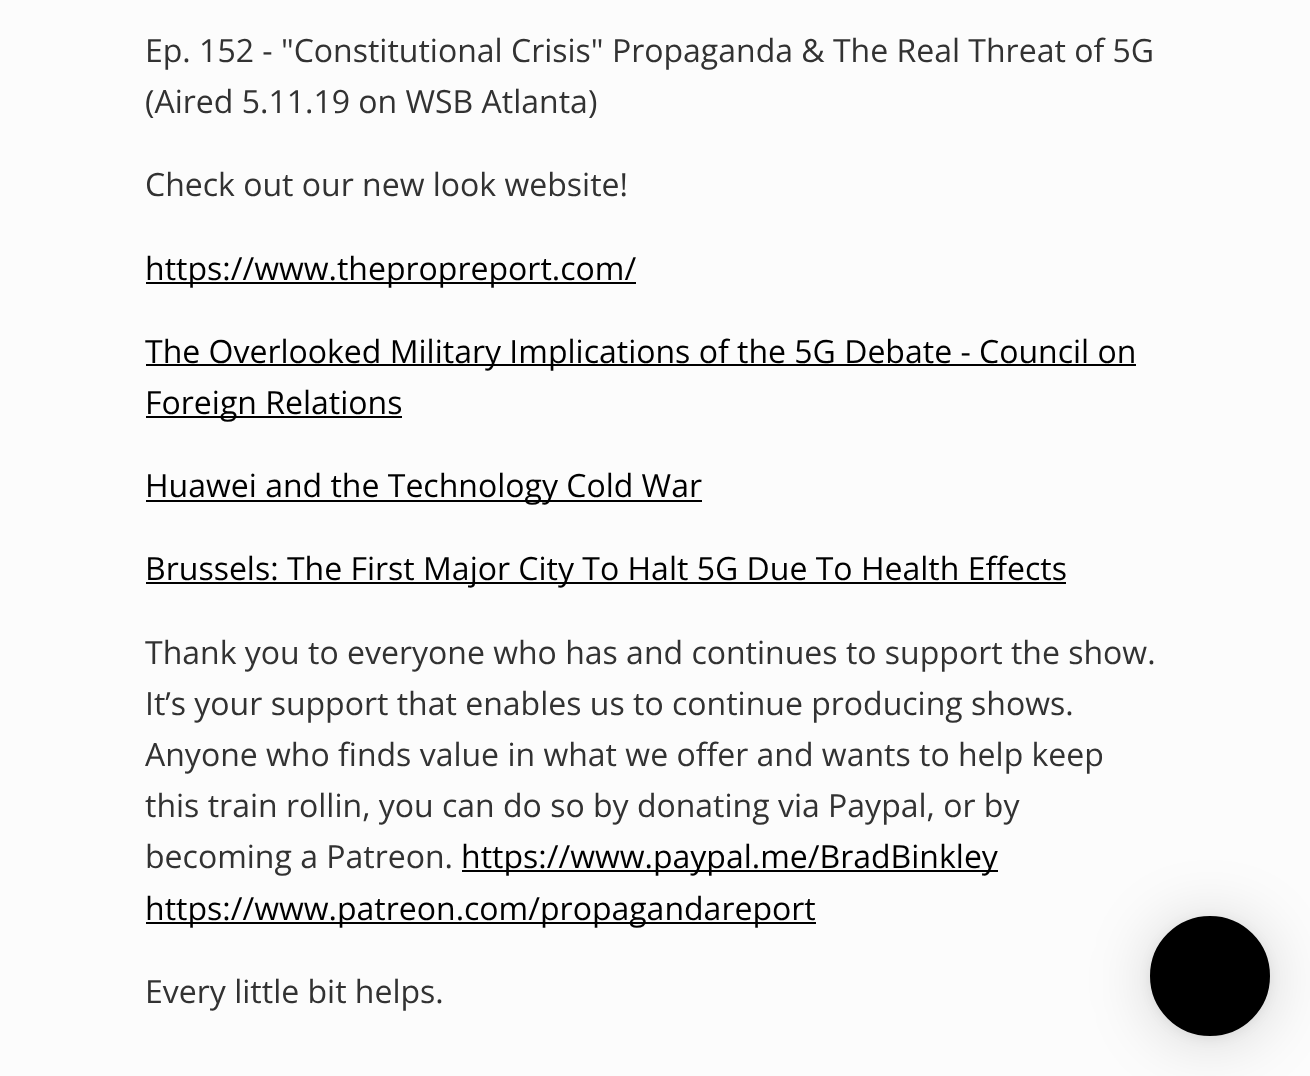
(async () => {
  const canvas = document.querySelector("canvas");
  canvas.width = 1310;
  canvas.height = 1076;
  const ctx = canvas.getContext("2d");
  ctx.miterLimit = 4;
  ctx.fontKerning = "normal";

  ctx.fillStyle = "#fcfcfc";
  ctx.fillRect(0, 0, 1310, 1076);
  for (const [x, y, w, h, color] of [
    [146, 282, 490, 2, "#000000"],
    [146, 364, 990, 2, "#000000"],
    [146, 416, 256, 2, "#000000"],
    [146, 500, 556, 2, "#000000"],
    [146, 582, 920, 2, "#000000"],
    [462, 870, 536, 2, "#000000"],
    [146, 922, 670, 2, "#000000"],
  ]) {
    ctx.fillStyle = color;
    ctx.fillRect(x, y, w, h);
  }
  ctx.fillStyle = "rgba(0, 0, 0, 0.16)";
  ctx.filter = "blur(32px)";
  ctx.beginPath();
  ctx.roundRect(1150, 920, 120, 120, 60);
  ctx.fill();
  ctx.filter = "none";
  ctx.fillStyle = "rgba(0, 0, 0, 0.06)";
  ctx.filter = "blur(6px)";
  ctx.beginPath();
  ctx.roundRect(1150, 918, 120, 120, 60);
  ctx.fill();
  ctx.filter = "none";
  ctx.fillStyle = "#000000";
  ctx.beginPath();
  ctx.arc(1210, 976, 59, 0, Math.PI * 2);
  ctx.fill();
  ctx.strokeStyle = "#000000";
  ctx.lineWidth = 2;
  ctx.stroke();
  ctx.font = "32px Open Sans";
  ctx.fillStyle = "#323232";
  for (const [text, x, y] of [
    ["Ep. 152 - \"Constitutional Crisis\" Propaganda & The Real Threat of 5G", 145, 62],
    ["(Aired 5.11.19 on WSB Atlanta)", 145, 113],
    ["Check out our new look website!", 145, 196],
  ]) {
    ctx.fillText(text, x, y);
  }
  ctx.fillStyle = "#000000";
  for (const [text, x, y] of [
    ["https://www.thepropreport.com/", 145, 280],
    ["The Overlooked Military Implications of the 5G Debate - Council on", 145, 363],
    ["Foreign Relations", 145, 414],
    ["Huawei and the Technology Cold War", 145, 497],
    ["Brussels: The First Major City To Halt 5G Due To Health Effects", 145, 580],
  ]) {
    ctx.fillText(text, x, y);
  }
  ctx.fillStyle = "#323232";
  for (const [text, x, y] of [
    ["Thank you to everyone who has and continues to support the show.", 145, 664],
    ["It’s your support that enables us to continue producing shows.", 145, 715],
    ["Anyone who finds value in what we offer and wants to help keep", 145, 766],
    ["this train rollin, you can do so by donating via Paypal, or by", 145, 817],
    ["becoming a Patreon.", 145, 868],
  ]) {
    ctx.fillText(text, x, y);
  }
  ctx.fillStyle = "#000000";
  ctx.fillText("https://www.paypal.me/BradBinkley", 461, 868);
  ctx.fillText("https://www.patreon.com/propagandareport", 145, 920);
  ctx.fillStyle = "#323232";
  ctx.fillText("Every little bit helps.", 145, 1003);
})();
